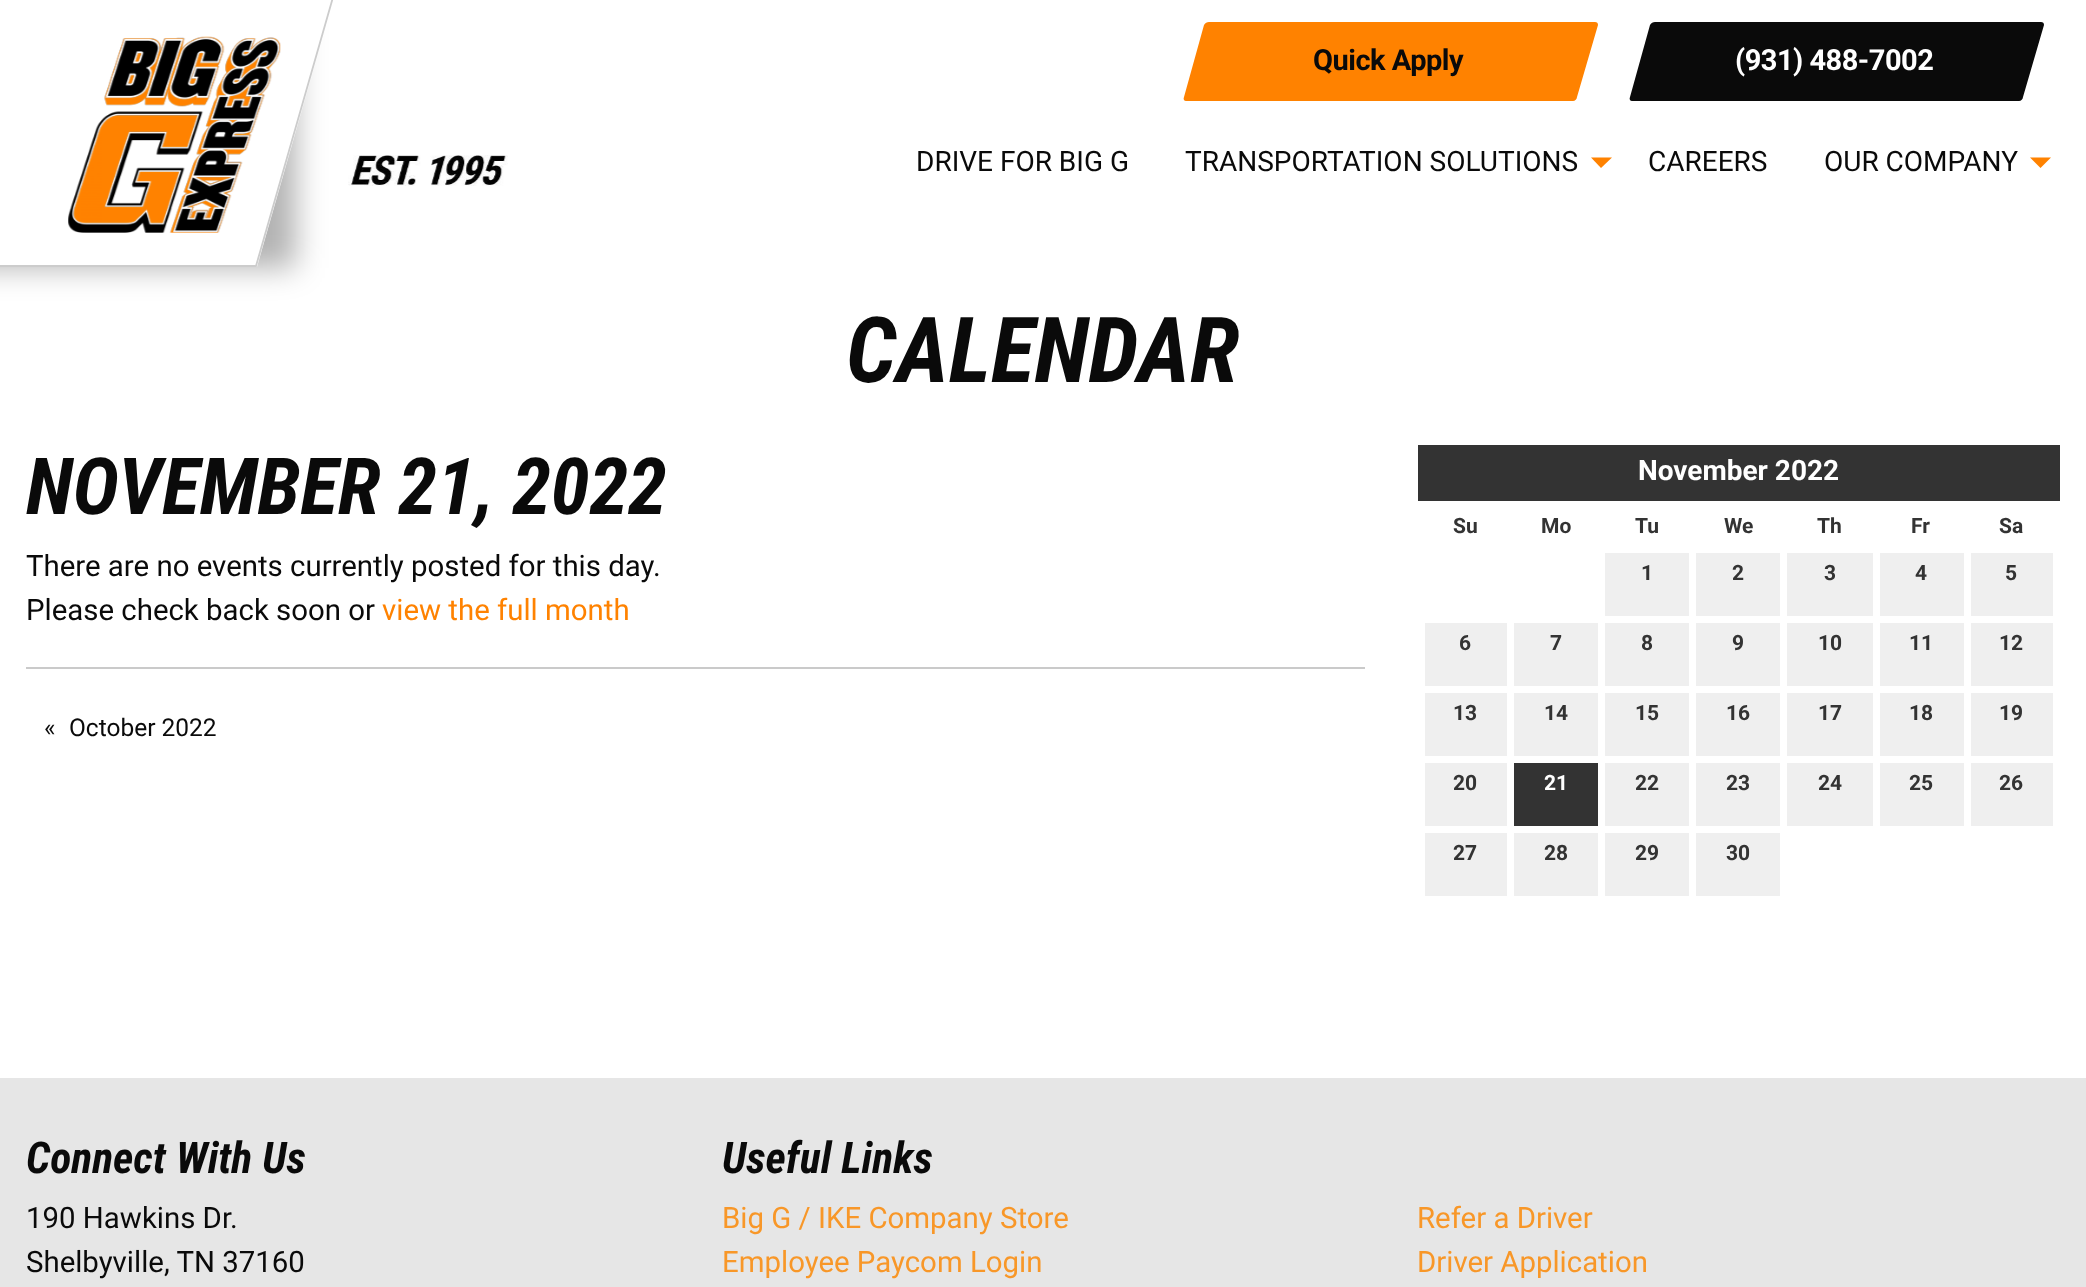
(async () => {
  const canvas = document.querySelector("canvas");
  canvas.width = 2086;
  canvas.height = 1287;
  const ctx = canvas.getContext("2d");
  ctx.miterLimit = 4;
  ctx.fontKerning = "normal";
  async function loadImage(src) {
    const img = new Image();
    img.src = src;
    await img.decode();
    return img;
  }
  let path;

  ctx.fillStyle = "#ffffff";
  ctx.fillRect(0, 0, 2086, 1287);
  ctx.fillStyle = "rgba(0, 0, 0, 0.3)";
  ctx.filter = "blur(15px)";
  ctx.beginPath();
  ctx.rect(-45, -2, 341, 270);
  ctx.fill();
  ctx.filter = "none";
  ctx.fillStyle = "#ffffff";
  path = new Path2D("M-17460-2H334L257 267H-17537Z");
  ctx.fill(path);
  path = new Path2D("M-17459-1H332.5L256 266H-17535.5Z");
  ctx.strokeStyle = "#cccccc";
  ctx.lineWidth = 1.8;
  ctx.stroke(path);
  ctx.drawImage(await loadImage("img/1.png"), 68, 36, 213, 197);
  ctx.drawImage(await loadImage("img/2.png"), 348, 155, 160, 31);
  ctx.fillStyle = "#ff8200";
  path = new Path2D("M1209 22H1595C1597 22 1598 23 1598 25L1577 97C1577 99 1575 101 1573 101H1186C1184 101 1183 99 1184 97L1204 25C1205 23 1207 22 1209 22Z");
  ctx.fill(path);
  ctx.fillStyle = "#0a0a0a";
  path = new Path2D("M1655 22H2041C2043 22 2044 23 2044 25L2023 97C2023 99 2021 101 2019 101H1632C1630 101 1629 99 1630 97L1650 25C1651 23 1653 22 1655 22Z");
  ctx.fill(path);
  ctx.fillStyle = "#ff8200";
  path = new Path2D("M1591 157.5H1612L1601 168Z");
  ctx.fill(path);
  path = new Path2D("M2030 157.5H2051L2040.5 168Z");
  ctx.fill(path);
  for (const [x, y, w, h, color] of [
    [26, 667, 1339, 2, "#cacaca"],
    [1418, 445, 642, 56, "#333333"],
    [1605, 553, 84, 63, "#efefef"],
    [1696, 553, 84, 63, "#efefef"],
    [1787, 553, 86, 63, "#efefef"],
    [1880, 553, 84, 63, "#efefef"],
    [1971, 553, 82, 63, "#efefef"],
    [1425, 623, 82, 63, "#efefef"],
    [1514, 623, 84, 63, "#efefef"],
    [1605, 623, 84, 63, "#efefef"],
    [1696, 623, 84, 63, "#efefef"],
    [1787, 623, 86, 63, "#efefef"],
    [1880, 623, 84, 63, "#efefef"],
    [1971, 623, 82, 63, "#efefef"],
    [1425, 693, 82, 63, "#efefef"],
    [1514, 693, 84, 63, "#efefef"],
    [1605, 693, 84, 63, "#efefef"],
    [1696, 693, 84, 63, "#efefef"],
    [1787, 693, 86, 63, "#efefef"],
    [1880, 693, 84, 63, "#efefef"],
    [1971, 693, 82, 63, "#efefef"],
    [1425, 763, 82, 63, "#efefef"],
    [1514, 763, 84, 63, "#333333"],
    [1605, 763, 84, 63, "#efefef"],
    [1696, 763, 84, 63, "#efefef"],
    [1787, 763, 86, 63, "#efefef"],
    [1880, 763, 84, 63, "#efefef"],
    [1971, 763, 82, 63, "#efefef"],
    [1425, 833, 82, 63, "#efefef"],
    [1514, 833, 84, 63, "#efefef"],
    [1605, 833, 84, 63, "#efefef"],
    [1696, 833, 84, 63, "#efefef"],
    [0, 1078, 2086, 209, "#e6e6e6"],
  ]) {
    ctx.fillStyle = color;
    ctx.fillRect(x, y, w, h);
  }
  ctx.letterSpacing = "-0.5px";
  ctx.font = "bold 29px Roboto";
  ctx.fillStyle = "#0a0a0a";
  ctx.fillText("Quick Apply", 1313, 70);
  ctx.fillStyle = "#ffffff";
  ctx.fillText("(931) 488-7002", 1735, 70);
  ctx.letterSpacing = "0px";
  ctx.font = "28px Roboto";
  ctx.fillStyle = "#0a0a0a";
  for (const [text, x, y] of [
    ["DRIVE FOR BIG G", 916, 171],
    ["TRANSPORTATION SOLUTIONS", 1185, 171],
    ["CAREERS", 1648, 171],
    ["OUR COMPANY", 1824, 171],
  ]) {
    ctx.fillText(text, x, y);
  }
  ctx.font = "italic bold 91px Roboto Condensed";
  ctx.fillText("CALENDAR", 846, 382);
  ctx.font = "italic bold 78.75px Roboto Condensed";
  ctx.fillText("NOVEMBER 21, 2022", 26, 514);
  ctx.font = "29.4px Roboto";
  ctx.fillText("There are no events currently posted for this day.", 26, 576);
  ctx.fillText("Please check back soon or", 26, 620);
  ctx.fillStyle = "#ff8200";
  ctx.fillText("view the full month", 382, 620);
  ctx.font = "24.5px Roboto";
  ctx.fillStyle = "#0a0a0a";
  ctx.fillText("«", 44, 736);
  ctx.fillText("October 2022", 69, 736);
  ctx.font = "bold 28px Roboto";
  ctx.fillStyle = "#ffffff";
  ctx.fillText("November 2022", 1638, 480);
  ctx.font = "bold 21px Roboto";
  ctx.fillStyle = "#333333";
  for (const [text, x, y] of [
    ["Su", 1453, 533],
    ["Mo", 1541, 533],
    ["Tu", 1635, 533],
    ["We", 1724, 533],
    ["Th", 1817, 533],
    ["Fr", 1911, 533],
    ["Sa", 1999, 533],
    ["1", 1641, 580],
    ["2", 1732, 580],
    ["3", 1824, 580],
    ["4", 1915, 580],
    ["5", 2005, 580],
    ["6", 1459, 650],
    ["7", 1550, 650],
    ["8", 1641, 650],
    ["9", 1732, 650],
    ["10", 1818, 650],
    ["11", 1909, 650],
    ["12", 1999, 650],
    ["13", 1453, 720],
    ["14", 1544, 720],
    ["15", 1635, 720],
    ["16", 1726, 720],
    ["17", 1818, 720],
    ["18", 1909, 720],
    ["19", 1999, 720],
    ["20", 1453, 790],
  ]) {
    ctx.fillText(text, x, y);
  }
  ctx.fillStyle = "#ffffff";
  ctx.fillText("21", 1544, 790);
  ctx.fillStyle = "#333333";
  for (const [text, x, y] of [
    ["22", 1635, 790],
    ["23", 1726, 790],
    ["24", 1818, 790],
    ["25", 1909, 790],
    ["26", 1999, 790],
    ["27", 1453, 860],
    ["28", 1544, 860],
    ["29", 1635, 860],
    ["30", 1726, 860],
  ]) {
    ctx.fillText(text, x, y);
  }
  ctx.font = "italic bold 43.75px Roboto Condensed";
  ctx.fillStyle = "#0a0a0a";
  ctx.fillText("Connect With Us", 26, 1173);
  ctx.font = "29.4px Roboto";
  ctx.fillText("190 Hawkins Dr.", 26, 1228);
  ctx.fillText("Shelbyville, TN 37160", 26, 1272);
  ctx.font = "italic bold 43.75px Roboto Condensed";
  ctx.fillText("Useful Links", 722, 1173);
  ctx.font = "29.4px Roboto";
  ctx.fillStyle = "#f89728";
  for (const [text, x, y] of [
    ["Big G / IKE Company Store", 722, 1228],
    ["Employee Paycom Login", 722, 1272],
    ["Refer a Driver", 1417, 1228],
    ["Driver Application", 1417, 1272],
  ]) {
    ctx.fillText(text, x, y);
  }
})();
